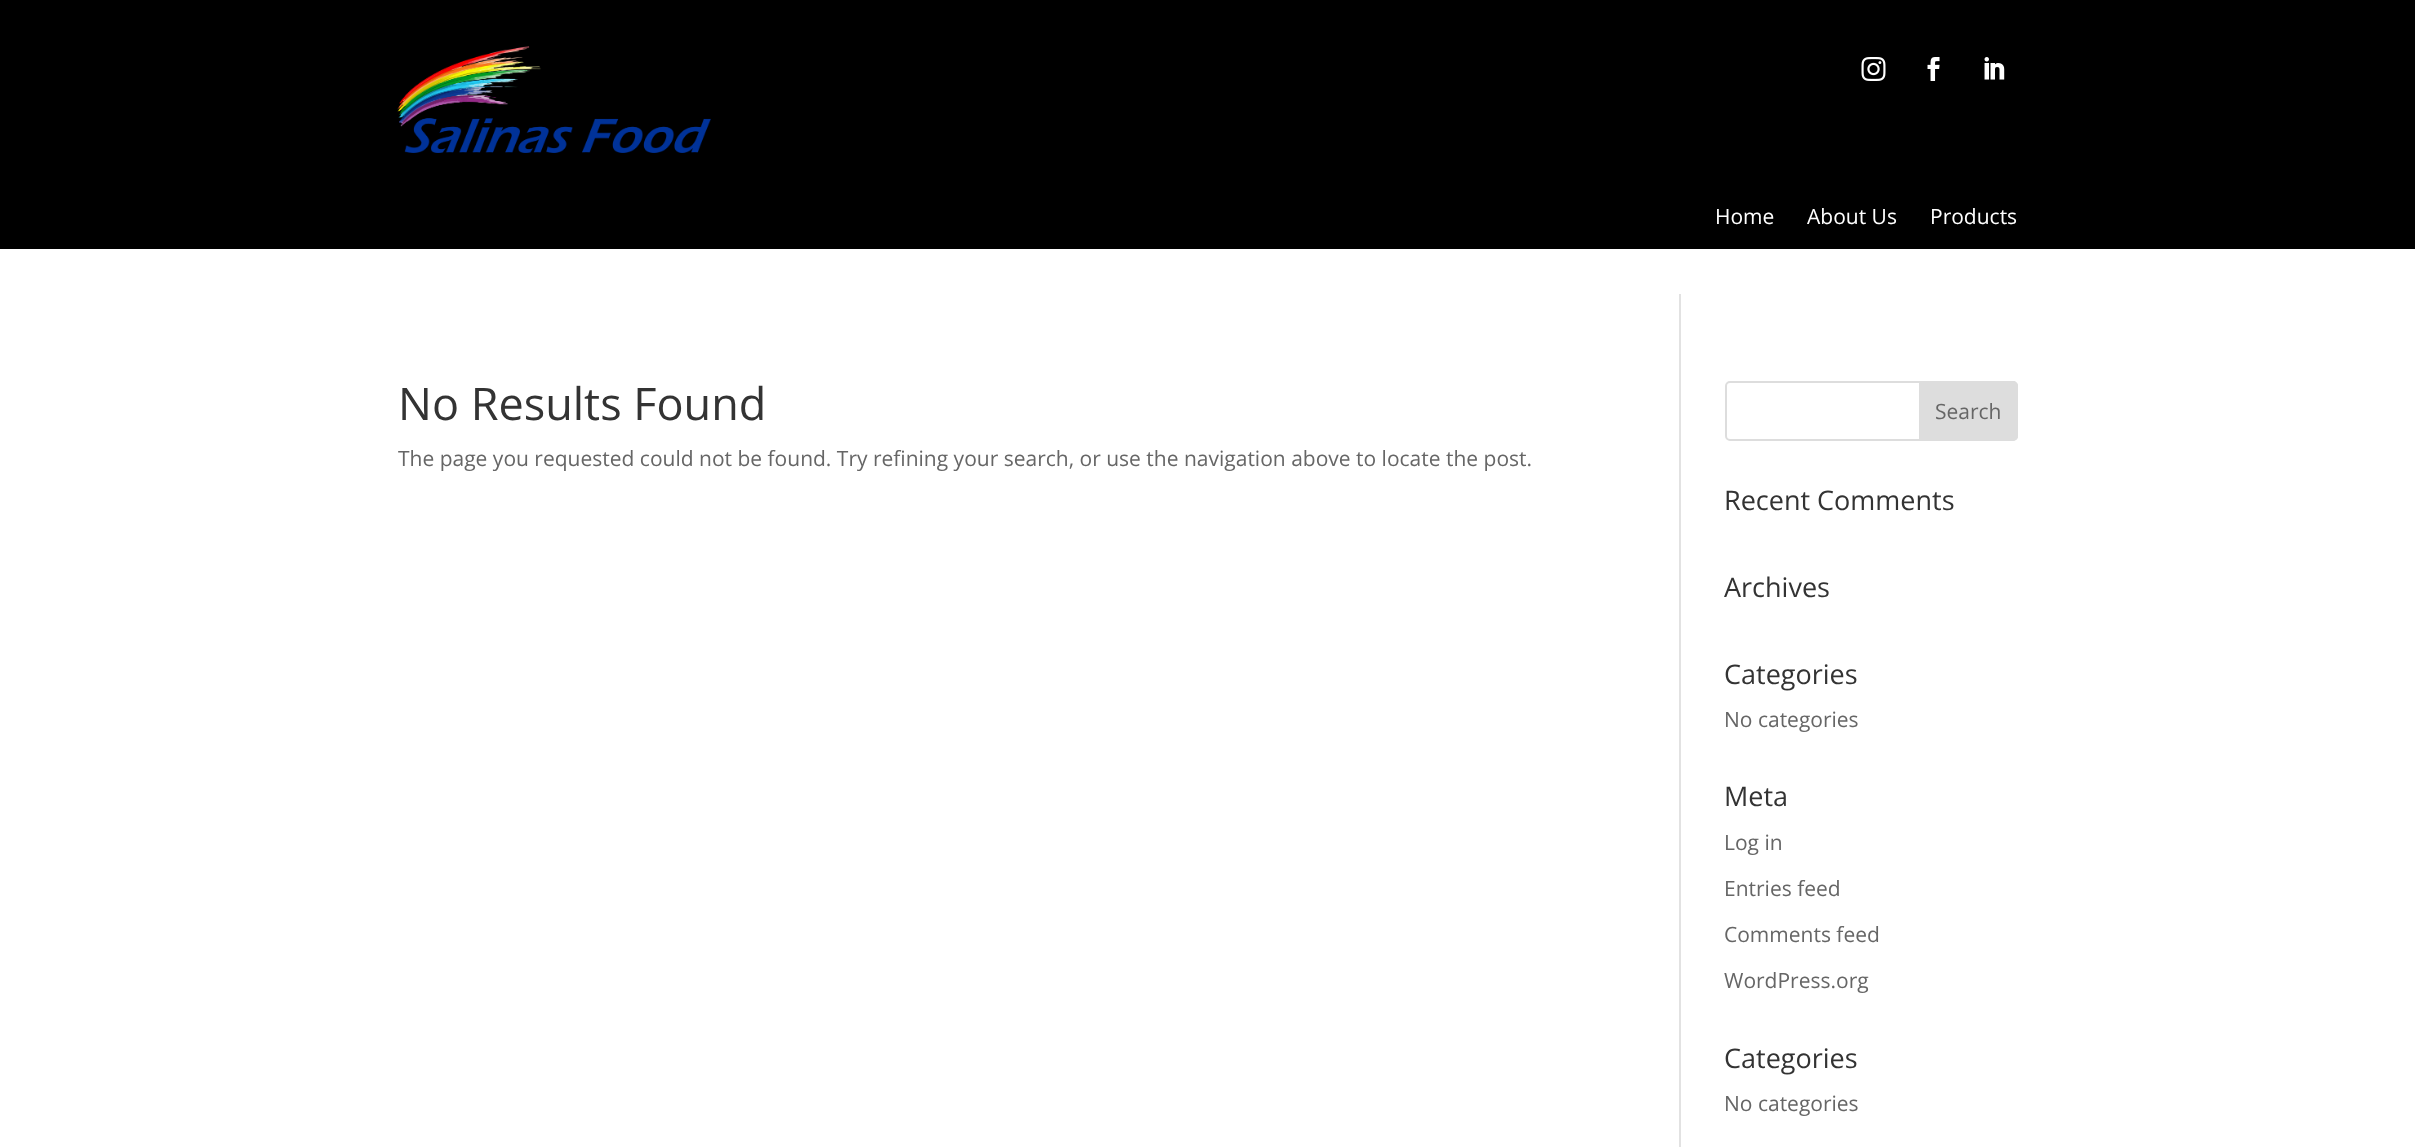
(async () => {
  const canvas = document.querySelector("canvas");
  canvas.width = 2415;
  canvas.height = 1147;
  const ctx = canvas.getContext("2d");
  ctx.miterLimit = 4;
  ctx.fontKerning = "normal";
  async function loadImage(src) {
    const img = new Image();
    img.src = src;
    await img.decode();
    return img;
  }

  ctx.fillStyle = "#ffffff";
  ctx.fillRect(0, 0, 2415, 1147);
  ctx.fillStyle = "#000000";
  ctx.fillRect(0, 0, 2415, 249);
  ctx.drawImage(await loadImage("img/1.png"), 397, 46, 314, 107);
  ctx.drawImage(await loadImage("img/2.png"), 1861, 57, 25, 24);
  ctx.drawImage(await loadImage("img/3.png"), 1927, 57, 13, 24);
  ctx.drawImage(await loadImage("img/4.png"), 1984, 57, 21, 23);
  ctx.fillStyle = "#e2e2e2";
  ctx.fillRect(1679, 294, 2, 853);
  ctx.beginPath();
  ctx.roundRect(1726, 382, 291, 58, 4);
  ctx.strokeStyle = "#dddddd";
  ctx.lineWidth = 2;
  ctx.stroke();
  ctx.fillStyle = "#dddddd";
  ctx.beginPath();
  ctx.roundRect(1920, 382, 97, 58, [0, 4, 4, 0]);
  ctx.fill();
  ctx.stroke();
  ctx.font = "21px Open Sans";
  ctx.fillStyle = "#ffffff";
  for (const [text, x, y] of [
    ["Home", 1715, 224],
    ["About Us", 1807, 224],
    ["Products", 1930, 224],
  ]) {
    ctx.fillText(text, x, y);
  }
  ctx.font = "45px Open Sans";
  ctx.fillStyle = "#333333";
  ctx.fillText("No Results Found", 398, 420);
  ctx.font = "21px Open Sans";
  ctx.fillStyle = "#666666";
  ctx.fillText("The page you requested could not be found. Try refining your search, or use the navigation above to locate the post.", 398, 466);
  ctx.fillText("Search", 1935, 419);
  ctx.font = "27px Open Sans";
  ctx.fillStyle = "#333333";
  for (const [text, x, y] of [
    ["Recent Comments", 1724, 510],
    ["Archives", 1724, 597],
    ["Categories", 1724, 684],
  ]) {
    ctx.fillText(text, x, y);
  }
  ctx.font = "21px Open Sans";
  ctx.fillStyle = "#666666";
  ctx.fillText("No categories", 1724, 727);
  ctx.font = "27px Open Sans";
  ctx.fillStyle = "#333333";
  ctx.fillText("Meta", 1724, 806);
  ctx.font = "21px Open Sans";
  ctx.fillStyle = "#666666";
  for (const [text, x, y] of [
    ["Log in", 1724, 850],
    ["Entries feed", 1724, 896],
    ["Comments feed", 1724, 942],
    ["WordPress.org", 1724, 988],
  ]) {
    ctx.fillText(text, x, y);
  }
  ctx.font = "27px Open Sans";
  ctx.fillStyle = "#333333";
  ctx.fillText("Categories", 1724, 1068);
  ctx.font = "21px Open Sans";
  ctx.fillStyle = "#666666";
  ctx.fillText("No categories", 1724, 1111);
})();
